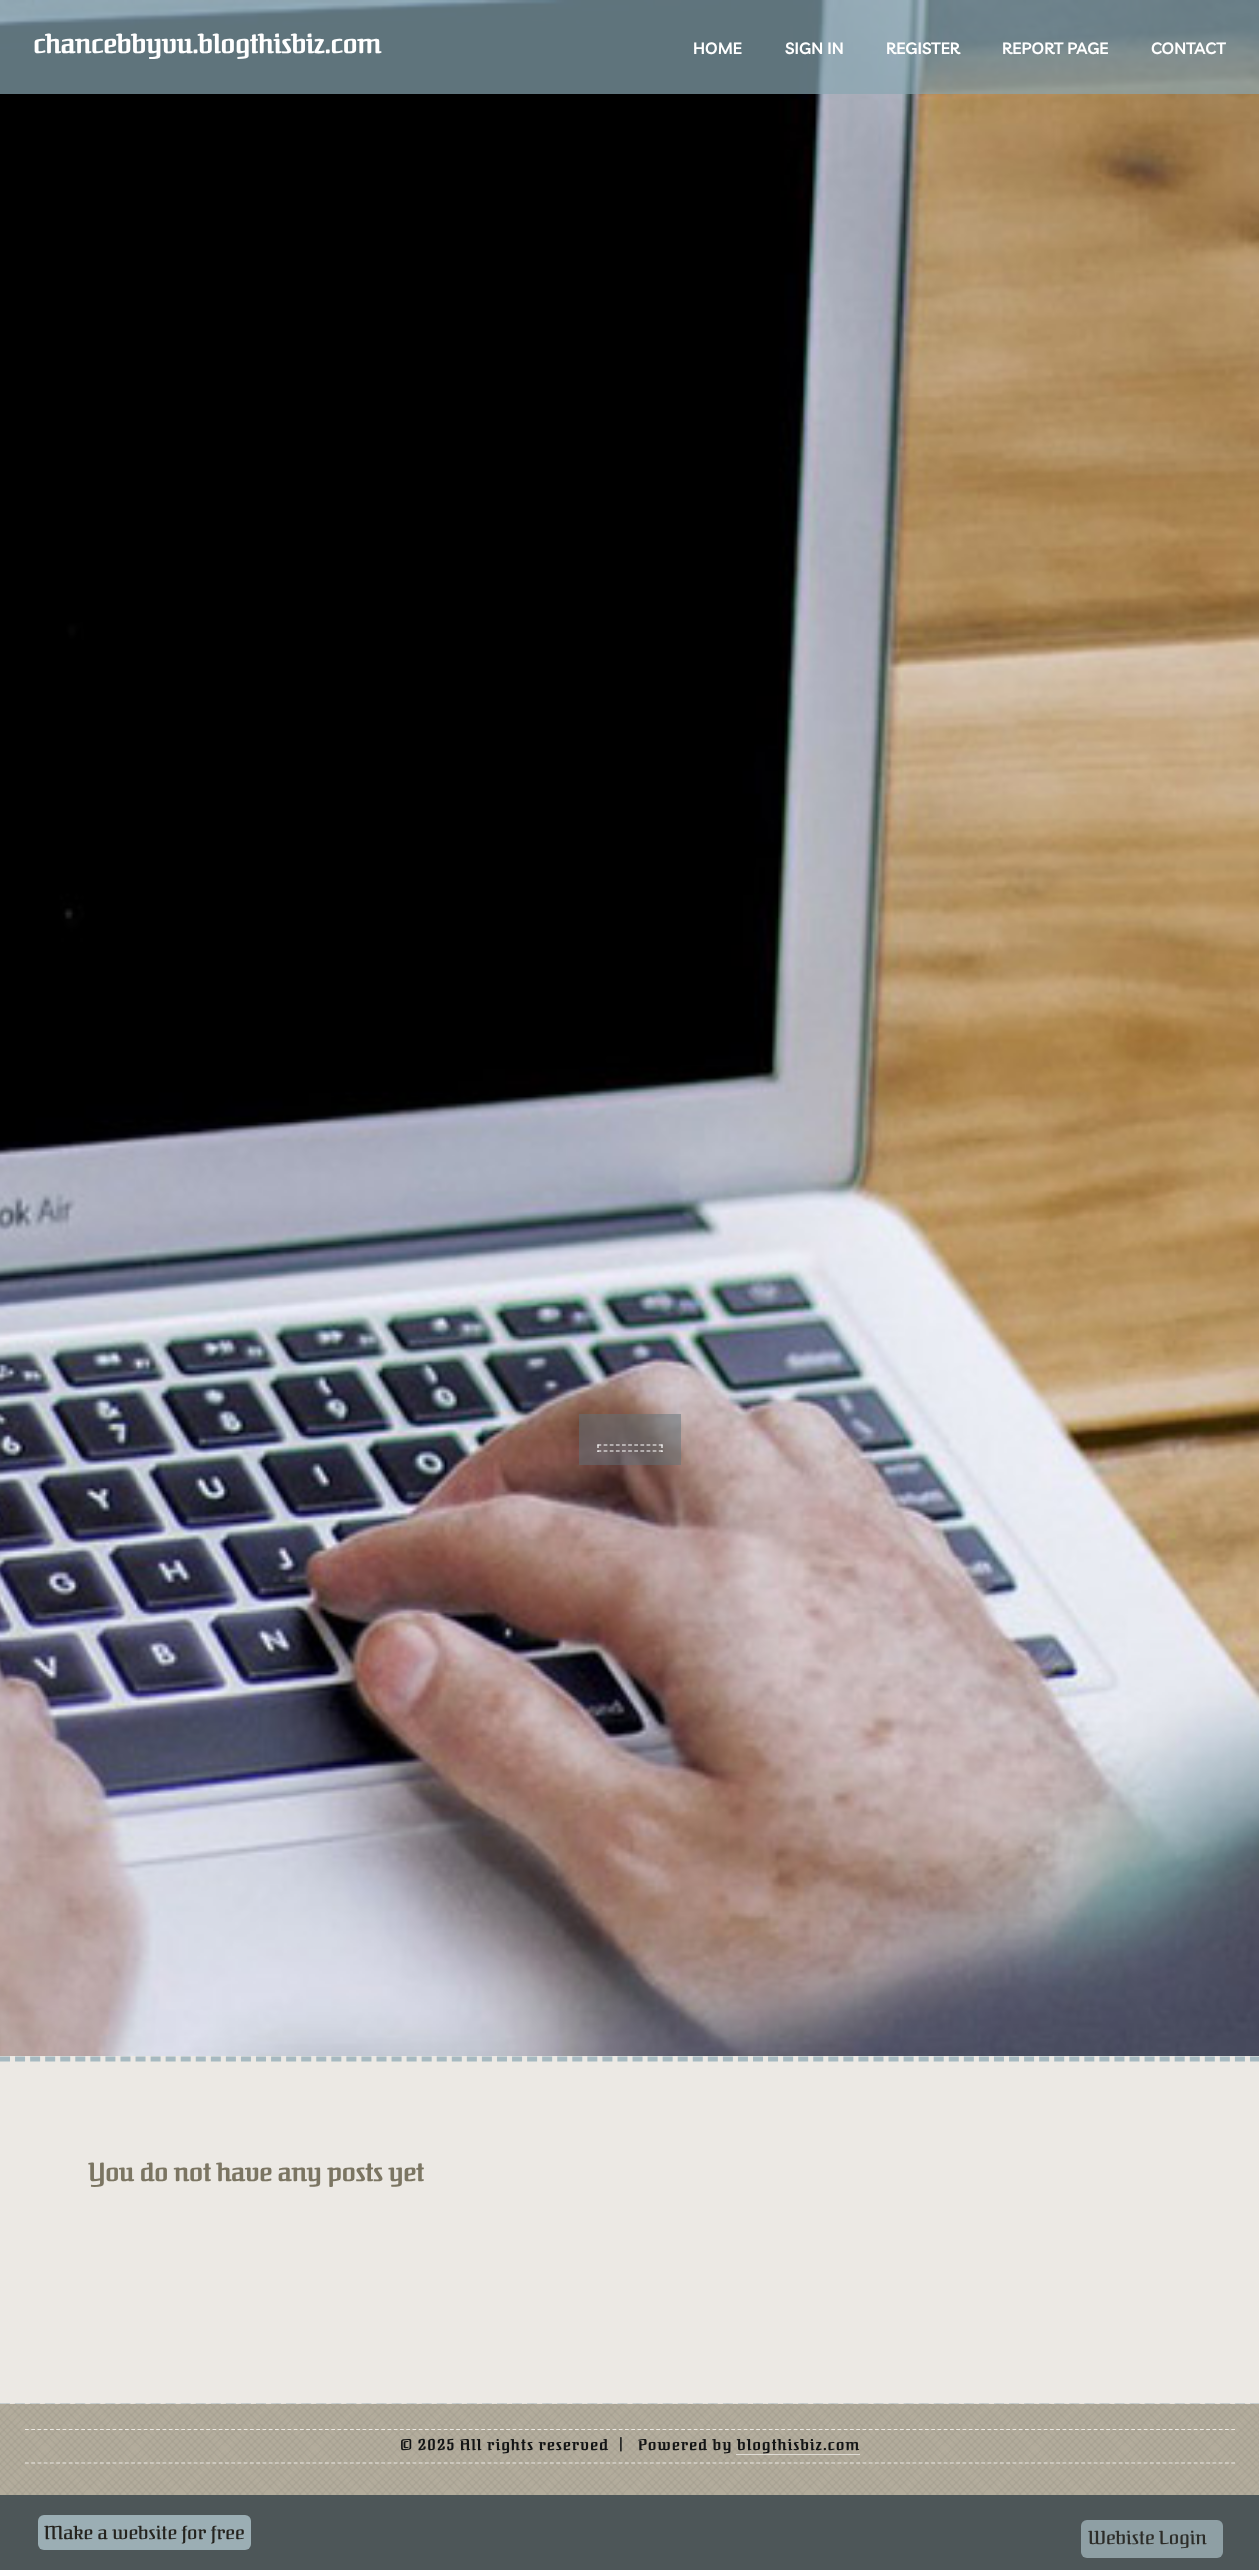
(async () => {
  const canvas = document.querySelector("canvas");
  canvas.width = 1259;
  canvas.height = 2570;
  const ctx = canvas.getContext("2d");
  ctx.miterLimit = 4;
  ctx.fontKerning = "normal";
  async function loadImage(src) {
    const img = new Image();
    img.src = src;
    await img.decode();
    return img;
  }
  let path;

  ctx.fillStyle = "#ece9e4";
  ctx.fillRect(0, 0, 1259, 2570);
  ctx.drawImage(await loadImage("img/1.png"), 0, 0, 1259, 2056);
  ctx.fillStyle = "rgba(136, 165, 177, 0.7)";
  ctx.fillRect(0, 0, 1259, 94);
  ctx.fillStyle = "rgba(95, 114, 121, 0.5)";
  ctx.fillRect(579, 1414, 102, 51);
  path = new Path2D("M597.5 1445H662.5");
  ctx.strokeStyle = "#ffffff";
  ctx.lineWidth = 1.2;
  ctx.setLineDash([3.75, 2.38]);
  ctx.stroke(path);
  path = new Path2D("M662 1444.5V1448M662 1450.5V1452");
  ctx.setLineDash([]);
  ctx.stroke(path);
  path = new Path2D("M597.5 1451H662.5");
  ctx.setLineDash([3.75, 2.38]);
  ctx.stroke(path);
  path = new Path2D("M598 1444.5V1448M598 1450.5V1452");
  ctx.setLineDash([]);
  ctx.stroke(path);
  path = new Path2D("M0 2059H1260");
  ctx.strokeStyle = "#a6b9c0";
  ctx.lineWidth = 5;
  ctx.setLineDash([10, 5.06]);
  ctx.stroke(path);
  path = new Path2D("M0 2406H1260");
  ctx.stroke(path);
  ctx.fillStyle = "#beb7a6";
  ctx.fillRect(0, 2404, 1259, 91);
  ctx.drawImage(await loadImage("img/2.png"), 0, 2403, 1259, 92);
  path = new Path2D("M25 2429.5H1235");
  ctx.strokeStyle = "#ece9e4";
  ctx.lineWidth = 1.2;
  ctx.setLineDash([3.75, 2.5]);
  ctx.stroke(path);
  path = new Path2D("M25 2463H1235");
  ctx.stroke(path);
  ctx.fillStyle = "rgba(255, 255, 255, 0.6)";
  ctx.fillRect(736, 2454, 124, 1);
  ctx.fillStyle = "#4d5658";
  ctx.fillRect(0, 2495, 1259, 75);
  ctx.fillStyle = "#9baeb4";
  ctx.beginPath();
  ctx.roundRect(38, 2515, 213, 35, 6);
  ctx.fill();
  ctx.fillStyle = "#8e9fa4";
  ctx.beginPath();
  ctx.roundRect(1081, 2520, 142, 38, 6);
  ctx.fill();
  ctx.font = "bold 26.25px Federant";
  ctx.fillStyle = "#ffffff";
  ctx.fillText("chancebbyvu.blogthisbiz.com", 33, 53);
  ctx.font = "600 16.25px Livvic";
  for (const [text, x, y] of [
    ["HOME", 693, 54],
    ["SIGN IN", 785, 54],
    ["REGISTER", 886, 54],
    ["REPORT PAGE", 1002, 54],
    ["CONTACT", 1151, 54],
  ]) {
    ctx.fillText(text, x, y);
  }
  ctx.font = "bold 25px Federant";
  ctx.fillStyle = "#7b7562";
  ctx.fillText("You do not have any posts yet", 88, 2181);
  ctx.letterSpacing = "1.25px";
  ctx.font = "bold 15px Federant";
  ctx.fillStyle = "#121415";
  for (const [text, x, y] of [
    ["© 2025 All rights reserved", 400, 2450],
    ["|", 619, 2449],
    ["Powered by blogthisbiz.com", 638, 2450],
  ]) {
    ctx.fillText(text, x, y);
  }
  ctx.letterSpacing = "0px";
  ctx.font = "18.75px Federant";
  ctx.fillStyle = "#25231e";
  ctx.fillText("Make a website for free", 44, 2539);
  ctx.fillStyle = "#2c2c28";
  ctx.fillText("Webiste Login", 1088, 2544);
})();
